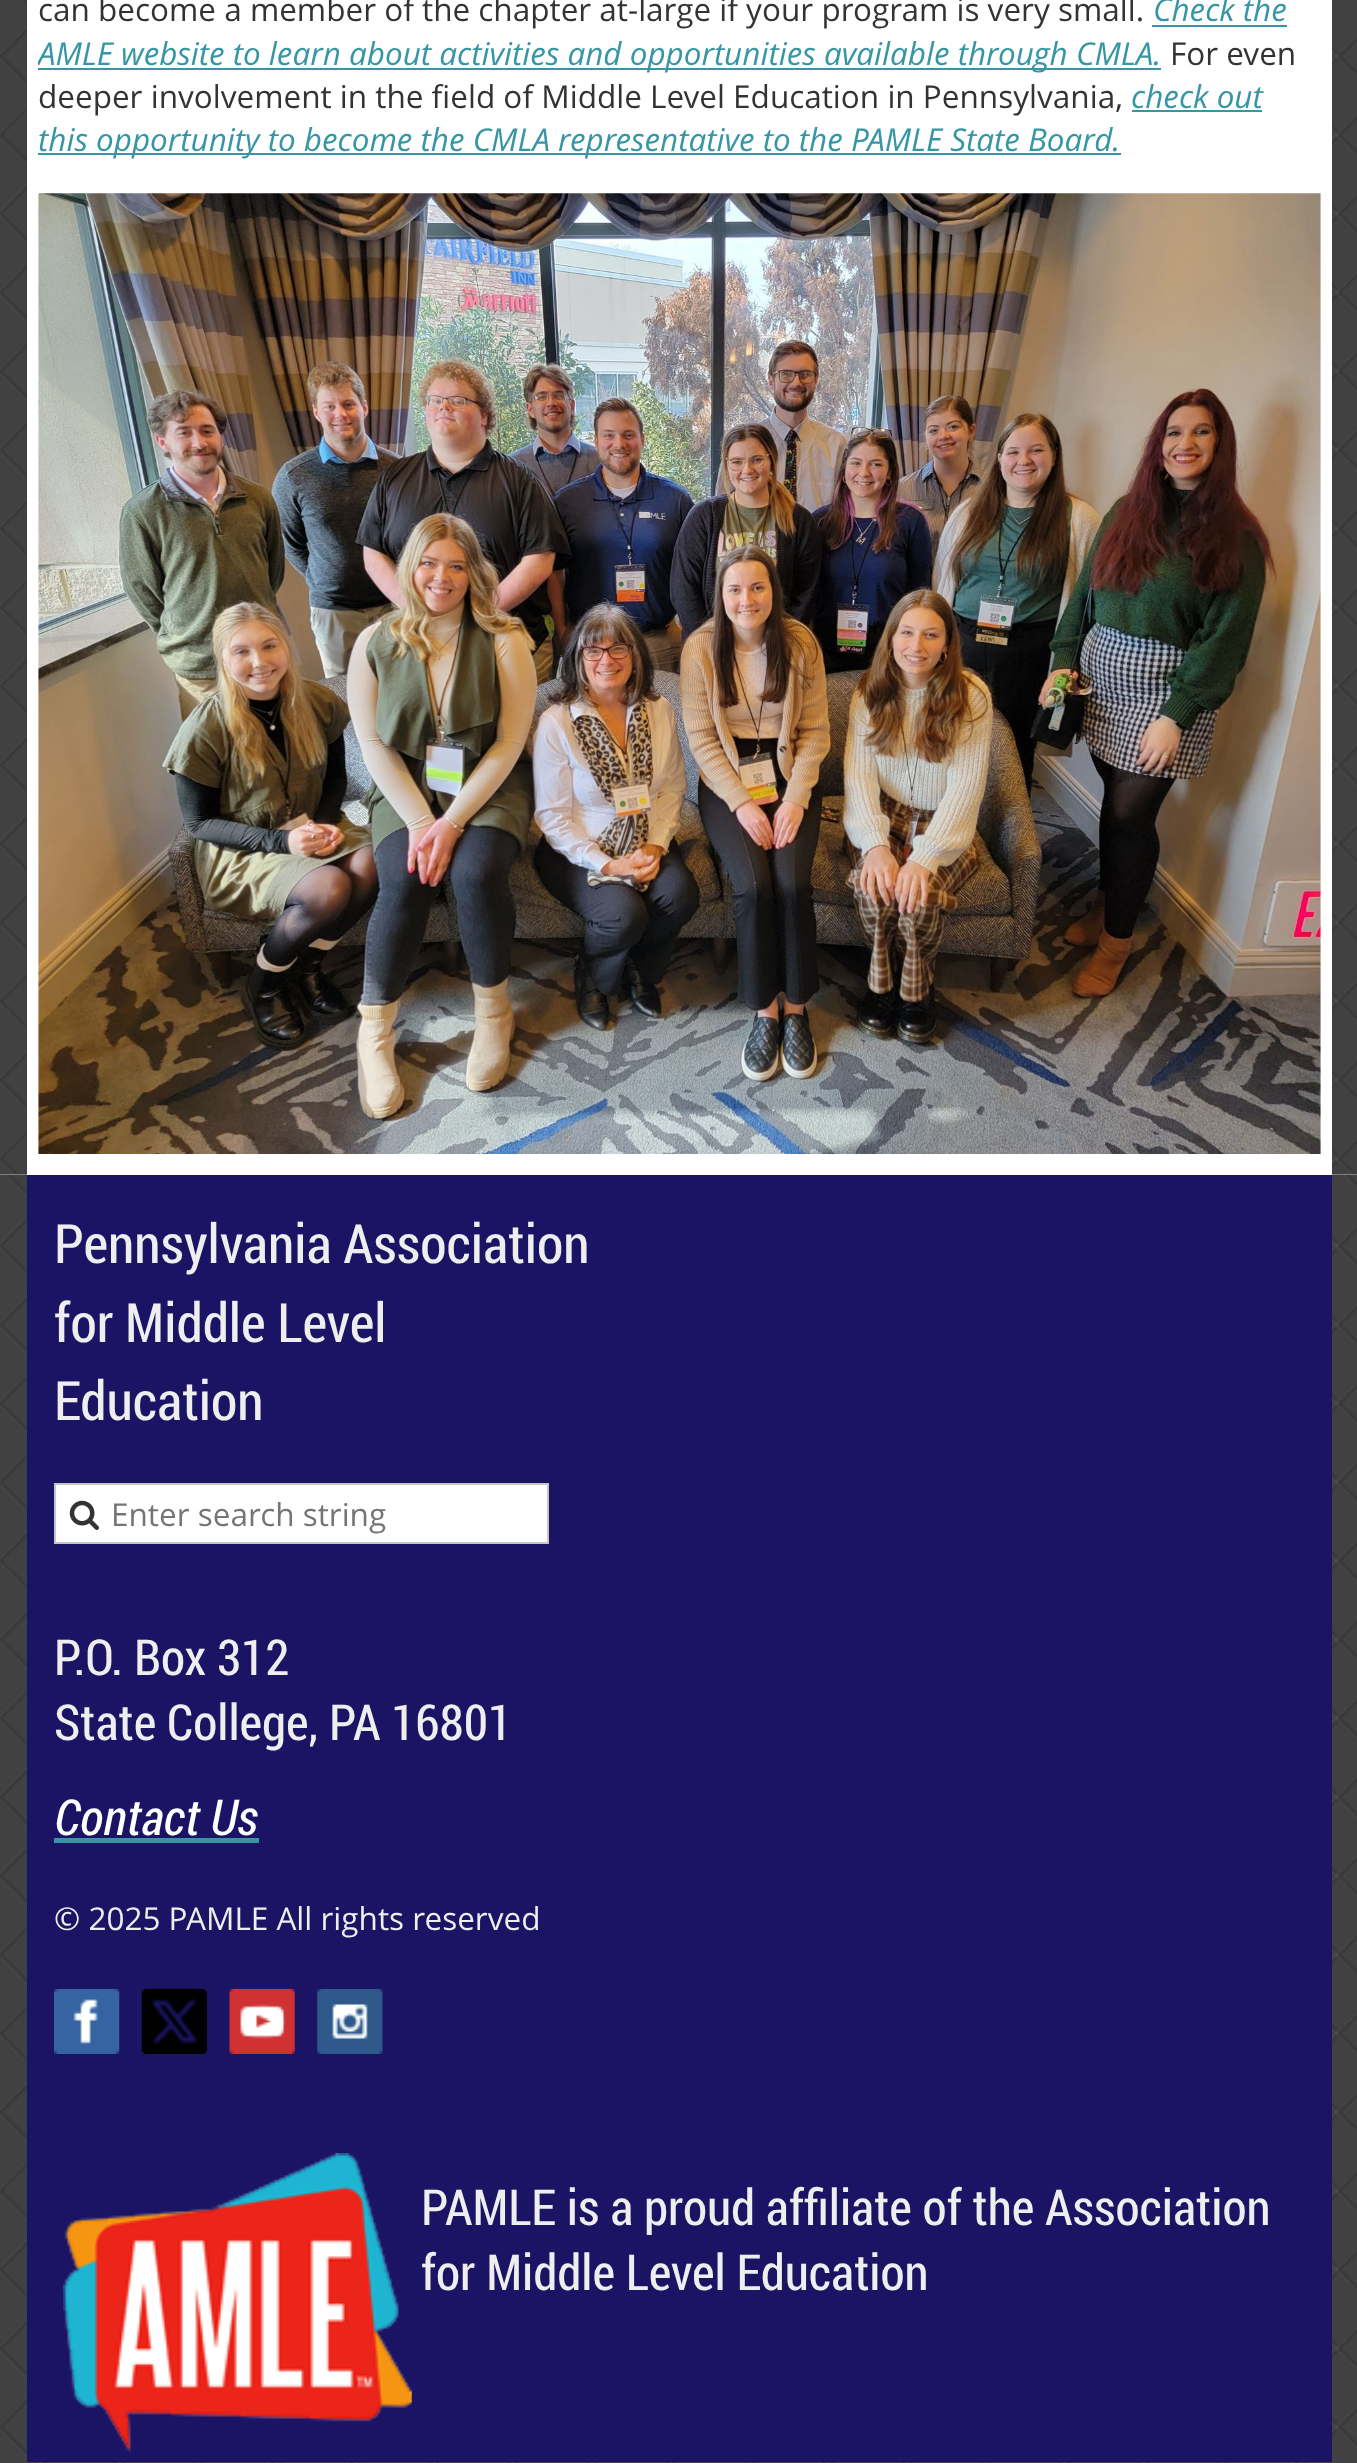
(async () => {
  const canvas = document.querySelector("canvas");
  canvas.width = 1357;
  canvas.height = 2463;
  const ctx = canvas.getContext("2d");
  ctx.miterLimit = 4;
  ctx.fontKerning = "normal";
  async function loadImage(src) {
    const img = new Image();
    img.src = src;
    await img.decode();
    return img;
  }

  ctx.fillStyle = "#ffffff";
  ctx.fillRect(0, 0, 1357, 2463);
  ctx.drawImage(await loadImage("img/1.png"), 0, 1175, 1357, 1288);
  ctx.fillStyle = "#959595";
  ctx.fillRect(0, 1174, 1357, 1);
  ctx.drawImage(await loadImage("img/2.png"), 0, 0, 1357, 1175);
  for (const [x, y, w, h, color] of [
    [27, 0, 1305, 1175, "#ffffff"],
    [1152, 25, 135, 2, "#3696a4"],
    [38, 68, 1123, 2, "#3696a4"],
    [1132, 110, 130, 2, "#3696a4"],
    [38, 153, 1083, 2, "#3696a4"],
  ]) {
    ctx.fillStyle = color;
    ctx.fillRect(x, y, w, h);
  }
  ctx.drawImage(await loadImage("img/3.png"), 38, 193, 1283, 961);
  ctx.fillStyle = "#1b1464";
  ctx.fillRect(27, 1175, 1305, 1287);
  ctx.fillStyle = "#ffffff";
  ctx.beginPath();
  ctx.rect(55, 1484, 493, 59);
  ctx.fill();
  ctx.strokeStyle = "#c6c6c6";
  ctx.lineWidth = 2;
  ctx.stroke();
  ctx.drawImage(await loadImage("img/4.png"), 69, 1500, 30, 30);
  ctx.fillStyle = "#3696a4";
  ctx.fillRect(54, 1838, 205, 5);
  ctx.drawImage(await loadImage("img/5.png"), 54, 1988, 66, 66);
  ctx.drawImage(await loadImage("img/6.png"), 141, 1988, 66, 66);
  ctx.drawImage(await loadImage("img/7.png"), 229, 1988, 66, 66);
  ctx.drawImage(await loadImage("img/8.png"), 317, 1989, 66, 65);
  ctx.drawImage(await loadImage("img/9.png"), 63, 2153, 349, 300);
  ctx.font = "31.5px Open Sans";
  ctx.fillStyle = "#333333";
  ctx.fillText("can become a member of the chapter at-large if your program is very small.", 38, 21);
  ctx.font = "italic 31.5px Open Sans";
  ctx.fillStyle = "#3696a4";
  ctx.fillText("Check the", 1153, 21);
  ctx.save();
  ctx.beginPath();
  ctx.rect(38, 0, 1283, 1163);
  ctx.clip();
  ctx.fillText("AMLE website to learn about activities and opportunities available through CMLA.", 38, 65);
  ctx.restore();
  ctx.font = "31.5px Open Sans";
  ctx.fillStyle = "#333333";
  ctx.fillText("For even", 1170, 65);
  ctx.fillText("deeper involvement in the field of Middle Level Education in Pennsylvania,", 38, 108);
  ctx.font = "italic 31.5px Open Sans";
  ctx.fillStyle = "#3696a4";
  ctx.fillText("check out", 1131, 108);
  ctx.fillText("this opportunity to become the CMLA representative to the PAMLE State Board.", 38, 151);
  ctx.font = "54px Roboto Condensed";
  ctx.fillStyle = "#eeeeee";
  for (const [text, x, y] of [
    ["Pennsylvania Association", 54, 1263],
    ["for Middle Level", 54, 1342],
    ["Education", 54, 1420],
  ]) {
    ctx.fillText(text, x, y);
  }
  ctx.font = "31.5px Open Sans";
  ctx.fillStyle = "#757575";
  ctx.fillText("Enter search string", 111, 1526);
  ctx.font = "49.5px Roboto Condensed";
  ctx.fillStyle = "#eeeeee";
  ctx.fillText("P.O. Box 312", 54, 1675);
  ctx.fillText("State College, PA 16801", 54, 1740);
  ctx.font = "italic 49.5px Roboto Condensed";
  ctx.fillStyle = "#ffffff";
  ctx.fillText("Contact Us", 54, 1835);
  ctx.font = "31.5px Open Sans";
  ctx.fillStyle = "#eeeeee";
  ctx.fillText("© 2025 PAMLE All rights reserved", 54, 1930);
  ctx.font = "49.5px Roboto Condensed";
  ctx.fillText("PAMLE is a proud affiliate of the Association", 421, 2225);
  ctx.fillText("for Middle Level Education", 421, 2290);
})();
